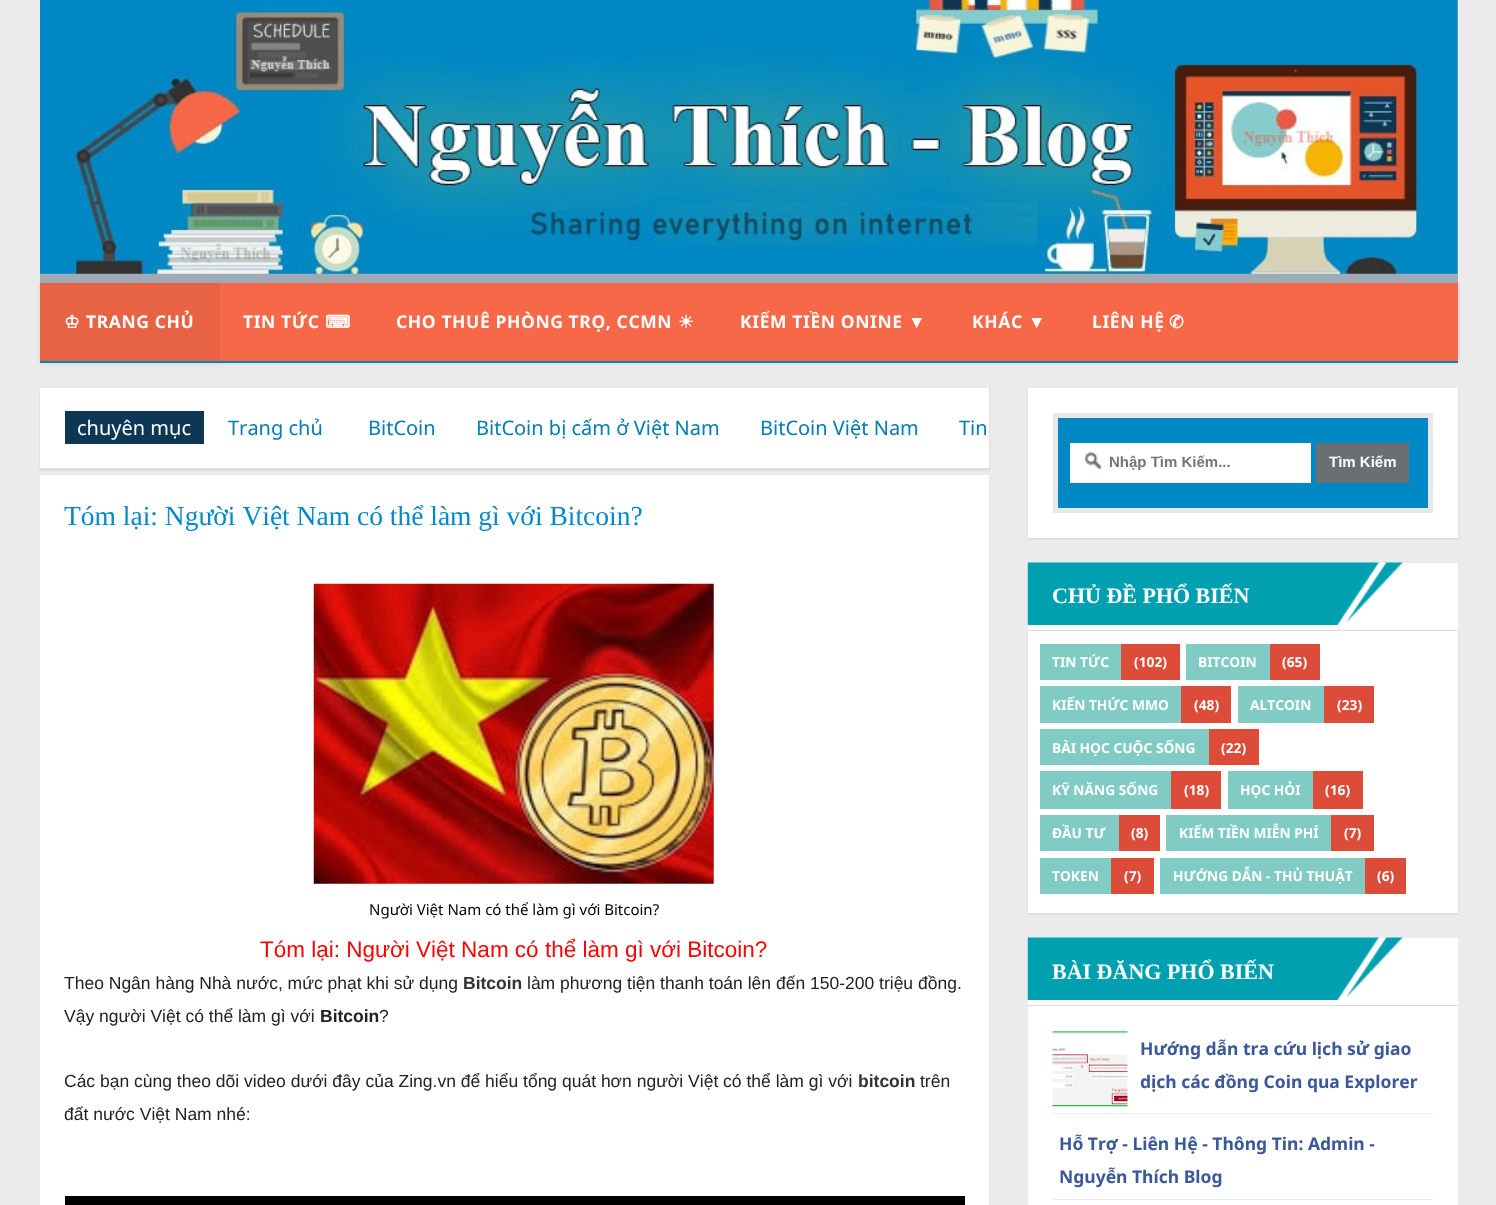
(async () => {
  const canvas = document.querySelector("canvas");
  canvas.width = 1496;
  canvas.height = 1205;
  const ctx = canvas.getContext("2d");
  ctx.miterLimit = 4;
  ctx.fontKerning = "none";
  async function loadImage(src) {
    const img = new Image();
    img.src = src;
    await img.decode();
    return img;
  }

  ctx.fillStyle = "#ebebeb";
  ctx.fillRect(0, 0, 1496, 1205);
  ctx.fillStyle = "rgba(0, 0, 0, 0.1)";
  ctx.filter = "blur(2.5px)";
  ctx.beginPath();
  ctx.rect(40, 283, 1418, 80);
  ctx.fill();
  ctx.filter = "none";
  ctx.fillStyle = "#9faab7";
  ctx.fillRect(40, 0, 1418, 283);
  ctx.drawImage(await loadImage("img/1.png"), 40, 0, 1418, 274);
  for (const [x, y, w, h, color] of [
    [40, 362, 1418, 1, "#0088c4"],
    [40, 361, 1418, 1, "#0080b8"],
    [220, 283, 1238, 78, "#f76848"],
    [40, 283, 180, 78, "#e86244"],
  ]) {
    ctx.fillStyle = color;
    ctx.fillRect(x, y, w, h);
  }
  ctx.fillStyle = "rgba(0, 0, 0, 0.1)";
  ctx.filter = "blur(1px)";
  ctx.beginPath();
  ctx.rect(40, 389, 949, 81);
  ctx.fill();
  ctx.filter = "none";
  for (const [x, y, w, h, color] of [
    [40, 388, 949, 80, "#ffffff"],
    [40, 468, 949, 1, "#e0e0e0"],
    [65, 411, 139, 33, "#0e3655"],
    [40, 475, 949, 730, "#ffffff"],
    [314, 584, 400, 300, "#fafafa"],
  ]) {
    ctx.fillStyle = color;
    ctx.fillRect(x, y, w, h);
  }
  ctx.drawImage(await loadImage("img/2.png"), 313, 583, 401, 301);
  ctx.fillStyle = "#000000";
  ctx.fillRect(65, 1196, 900, 9);
  ctx.fillStyle = "rgba(0, 0, 0, 0.1)";
  ctx.filter = "blur(1px)";
  ctx.beginPath();
  ctx.rect(1028, 389, 430, 150);
  ctx.fill();
  ctx.filter = "none";
  ctx.fillStyle = "#ffffff";
  ctx.fillRect(1028, 388, 430, 150);
  ctx.fillStyle = "#0088c4";
  ctx.beginPath();
  ctx.rect(1055.5, 415.5, 375, 95);
  ctx.fill();
  ctx.strokeStyle = "#e8e8e8";
  ctx.lineWidth = 5;
  ctx.stroke();
  ctx.fillStyle = "#ffffff";
  ctx.fillRect(1070, 443, 241, 40);
  ctx.drawImage(await loadImage("img/3.png"), 1084, 452, 18, 18);
  ctx.fillStyle = "#6a6f75";
  ctx.fillRect(1316, 443, 93, 40);
  ctx.fillStyle = "rgba(0, 0, 0, 0.1)";
  ctx.filter = "blur(1px)";
  ctx.beginPath();
  ctx.rect(1028, 633, 430, 281);
  ctx.fill();
  ctx.filter = "none";
  ctx.fillStyle = "#ffffff";
  ctx.fillRect(1028, 563, 430, 67);
  ctx.drawImage(await loadImage("img/4.png"), 1027, 562, 376, 63);
  for (const [x, y, w, h, color] of [
    [1028, 630, 430, 1, "#dbdbdb"],
    [1028, 631, 430, 282, "#ffffff"],
    [1121, 644, 59, 36, "#dd4b39"],
    [1040, 644, 81, 36, "#80cbc4"],
    [1270, 644, 50, 36, "#dd4b39"],
    [1186, 644, 84, 36, "#80cbc4"],
    [1181, 686, 50, 37, "#dd4b39"],
    [1040, 686, 141, 37, "#80cbc4"],
    [1324, 686, 50, 37, "#dd4b39"],
    [1238, 686, 86, 37, "#80cbc4"],
    [1209, 729, 50, 36, "#dd4b39"],
    [1040, 729, 169, 36, "#80cbc4"],
    [1171, 771, 50, 38, "#dd4b39"],
    [1040, 771, 131, 38, "#80cbc4"],
    [1313, 771, 50, 38, "#dd4b39"],
    [1228, 771, 85, 38, "#80cbc4"],
    [1119, 815, 41, 36, "#dd4b39"],
    [1040, 815, 79, 36, "#80cbc4"],
    [1331, 815, 43, 36, "#dd4b39"],
    [1166, 815, 165, 36, "#80cbc4"],
    [1111, 858, 43, 36, "#dd4b39"],
    [1040, 858, 71, 36, "#80cbc4"],
    [1365, 858, 41, 36, "#dd4b39"],
    [1160, 858, 205, 36, "#80cbc4"],
    [1028, 938, 430, 67, "#ffffff"],
  ]) {
    ctx.fillStyle = color;
    ctx.fillRect(x, y, w, h);
  }
  ctx.drawImage(await loadImage("img/5.png"), 1027, 937, 376, 63);
  for (const [x, y, w, h, color] of [
    [1028, 1005, 430, 1, "#dbdbdb"],
    [1028, 1006, 430, 199, "#ffffff"],
    [1053, 1113, 380, 1, "#eaeaea"],
  ]) {
    ctx.fillStyle = color;
    ctx.fillRect(x, y, w, h);
  }
  ctx.drawImage(await loadImage("img/6.png"), 1052, 1031, 76, 76);
  ctx.fillRect(1053, 1199, 380, 1);
  ctx.letterSpacing = "0.6px";
  ctx.font = "bold 17.5px DejaVu Sans";
  ctx.fillStyle = "#ffffff";
  ctx.fillText("♔", 64, 328);
  ctx.font = "bold 17.5px Noto Sans";
  ctx.fillText("TRANG CHỦ", 86, 328);
  ctx.fillText("TIN TỨC", 243, 328);
  ctx.font = "bold 17.5px DejaVu Sans";
  ctx.fillText("⌨", 325, 328);
  ctx.font = "bold 17.5px Noto Sans";
  ctx.fillText("CHO THUÊ PHÒNG TRỌ, CCMN", 396, 328);
  ctx.font = "bold 17.5px DejaVu Sans";
  ctx.fillText("☀", 678, 328);
  ctx.font = "bold 17.5px Noto Sans";
  ctx.fillText("KIẾM TIỀN ONINE", 740, 328);
  ctx.font = "bold 17.5px Liberation Serif";
  ctx.fillText("▼", 908, 328);
  ctx.font = "bold 17.5px Noto Sans";
  ctx.fillText("KHÁC", 972, 328);
  ctx.font = "bold 17.5px Liberation Serif";
  ctx.fillText("▼", 1028, 328);
  ctx.font = "bold 17.5px Noto Sans";
  ctx.fillText("LIÊN HỆ", 1092, 328);
  ctx.font = "bold 17.5px DejaVu Sans";
  ctx.fillText("✆", 1169, 328);
  ctx.letterSpacing = "0px";
  ctx.font = "20px Noto Sans";
  ctx.fillText("chuyên mục", 77, 435);
  ctx.fillStyle = "#017db3";
  for (const [text, x, y] of [
    ["Trang chủ", 228, 435],
    ["BitCoin", 368, 435],
    ["BitCoin bị cấm ở Việt Nam", 476, 435],
    ["BitCoin Việt Nam", 760, 435],
    ["Tin", 959, 435],
  ]) {
    ctx.fillText(text, x, y);
  }
  ctx.font = "27.5px Liberation Serif";
  ctx.fillStyle = "#0089c8";
  ctx.fillText("Tóm lại: Người Việt Nam có thể làm gì với Bitcoin?", 64, 525);
  ctx.font = "15px Noto Sans";
  ctx.fillStyle = "#000000";
  ctx.fillText("Người Việt Nam có thể làm gì với Bitcoin?", 369, 915);
  ctx.font = "22.5px Liberation Sans";
  ctx.fillStyle = "#ff0000";
  ctx.fillText("Tóm lại: Người Việt Nam có thể làm gì với Bitcoin?", 260, 957);
  ctx.font = "17.5px Liberation Sans";
  ctx.fillStyle = "#222222";
  ctx.fillText("Theo Ngân hàng Nhà nước, mức phạt khi sử dụng", 64, 989);
  ctx.font = "bold 17.5px Liberation Sans";
  ctx.fillStyle = "#333333";
  ctx.fillText("Bitcoin", 463, 989);
  ctx.font = "17.5px Liberation Sans";
  ctx.fillStyle = "#222222";
  ctx.fillText("làm phương tiện thanh toán lên đến 150-200 triệu đồng.", 527, 989);
  ctx.fillText("Vậy người Việt có thể làm gì với", 64, 1022);
  ctx.font = "bold 17.5px Liberation Sans";
  ctx.fillText("Bitcoin", 320, 1022);
  ctx.font = "17.5px Liberation Sans";
  ctx.fillText("?", 379, 1022);
  ctx.fillText("Các bạn cùng theo dõi video dưới đây của Zing.vn để hiểu tổng quát hơn người Việt có thể làm gì với", 64, 1087);
  ctx.font = "bold 17.5px Liberation Sans";
  ctx.fillStyle = "#333333";
  ctx.fillText("bitcoin", 858, 1087);
  ctx.font = "17.5px Liberation Sans";
  ctx.fillStyle = "#222222";
  ctx.fillText("trên", 920, 1087);
  ctx.fillText("đất nước Việt Nam nhé:", 64, 1120);
  ctx.font = "bold 15px Liberation Sans";
  ctx.fillStyle = "#757575";
  ctx.fillText("Nhập Tìm Kiếm...", 1109, 467);
  ctx.fillStyle = "#ffffff";
  ctx.fillText("Tìm Kiếm", 1329, 467);
  ctx.font = "bold 22px Liberation Serif";
  ctx.fillText("CHỦ ĐỀ PHỔ BIẾN", 1052, 603);
  ctx.font = "bold 13.75px Noto Sans";
  for (const [text, x, y] of [
    ["TIN TỨC", 1052, 667],
    ["(102)", 1134, 667],
    ["BITCOIN", 1198, 667],
    ["(65)", 1282, 667],
    ["KIẾN THỨC MMO", 1052, 710],
    ["(48)", 1194, 710],
    ["ALTCOIN", 1250, 710],
    ["(23)", 1337, 710],
    ["BÀI HỌC CUỘC SỐNG", 1052, 753],
    ["(22)", 1221, 753],
    ["KỸ NĂNG SỐNG", 1052, 795],
    ["(18)", 1184, 795],
    ["HỌC HỎI", 1240, 795],
    ["(16)", 1325, 795],
    ["ĐẦU TƯ", 1052, 838],
    ["(8)", 1131, 838],
    ["KIẾM TIỀN MIỄN PHÍ", 1179, 838],
    ["(7)", 1344, 838],
    ["TOKEN", 1052, 881],
    ["(7)", 1124, 881],
    ["HƯỚNG DẪN - THỦ THUẬT", 1173, 881],
    ["(6)", 1377, 881],
  ]) {
    ctx.fillText(text, x, y);
  }
  ctx.font = "bold 22px Liberation Serif";
  ctx.fillText("BÀI ĐĂNG PHỔ BIẾN", 1052, 979);
  ctx.font = "bold 17.5px Noto Sans";
  ctx.fillStyle = "#3b5998";
  for (const [text, x, y] of [
    ["Hướng dẫn tra cứu lịch sử giao", 1140, 1055],
    ["dịch các đồng Coin qua Explorer", 1140, 1088],
    ["Hỗ Trợ - Liên Hệ - Thông Tin: Admin -", 1059, 1150],
    ["Nguyễn Thích Blog", 1059, 1183],
  ]) {
    ctx.fillText(text, x, y);
  }
})();
